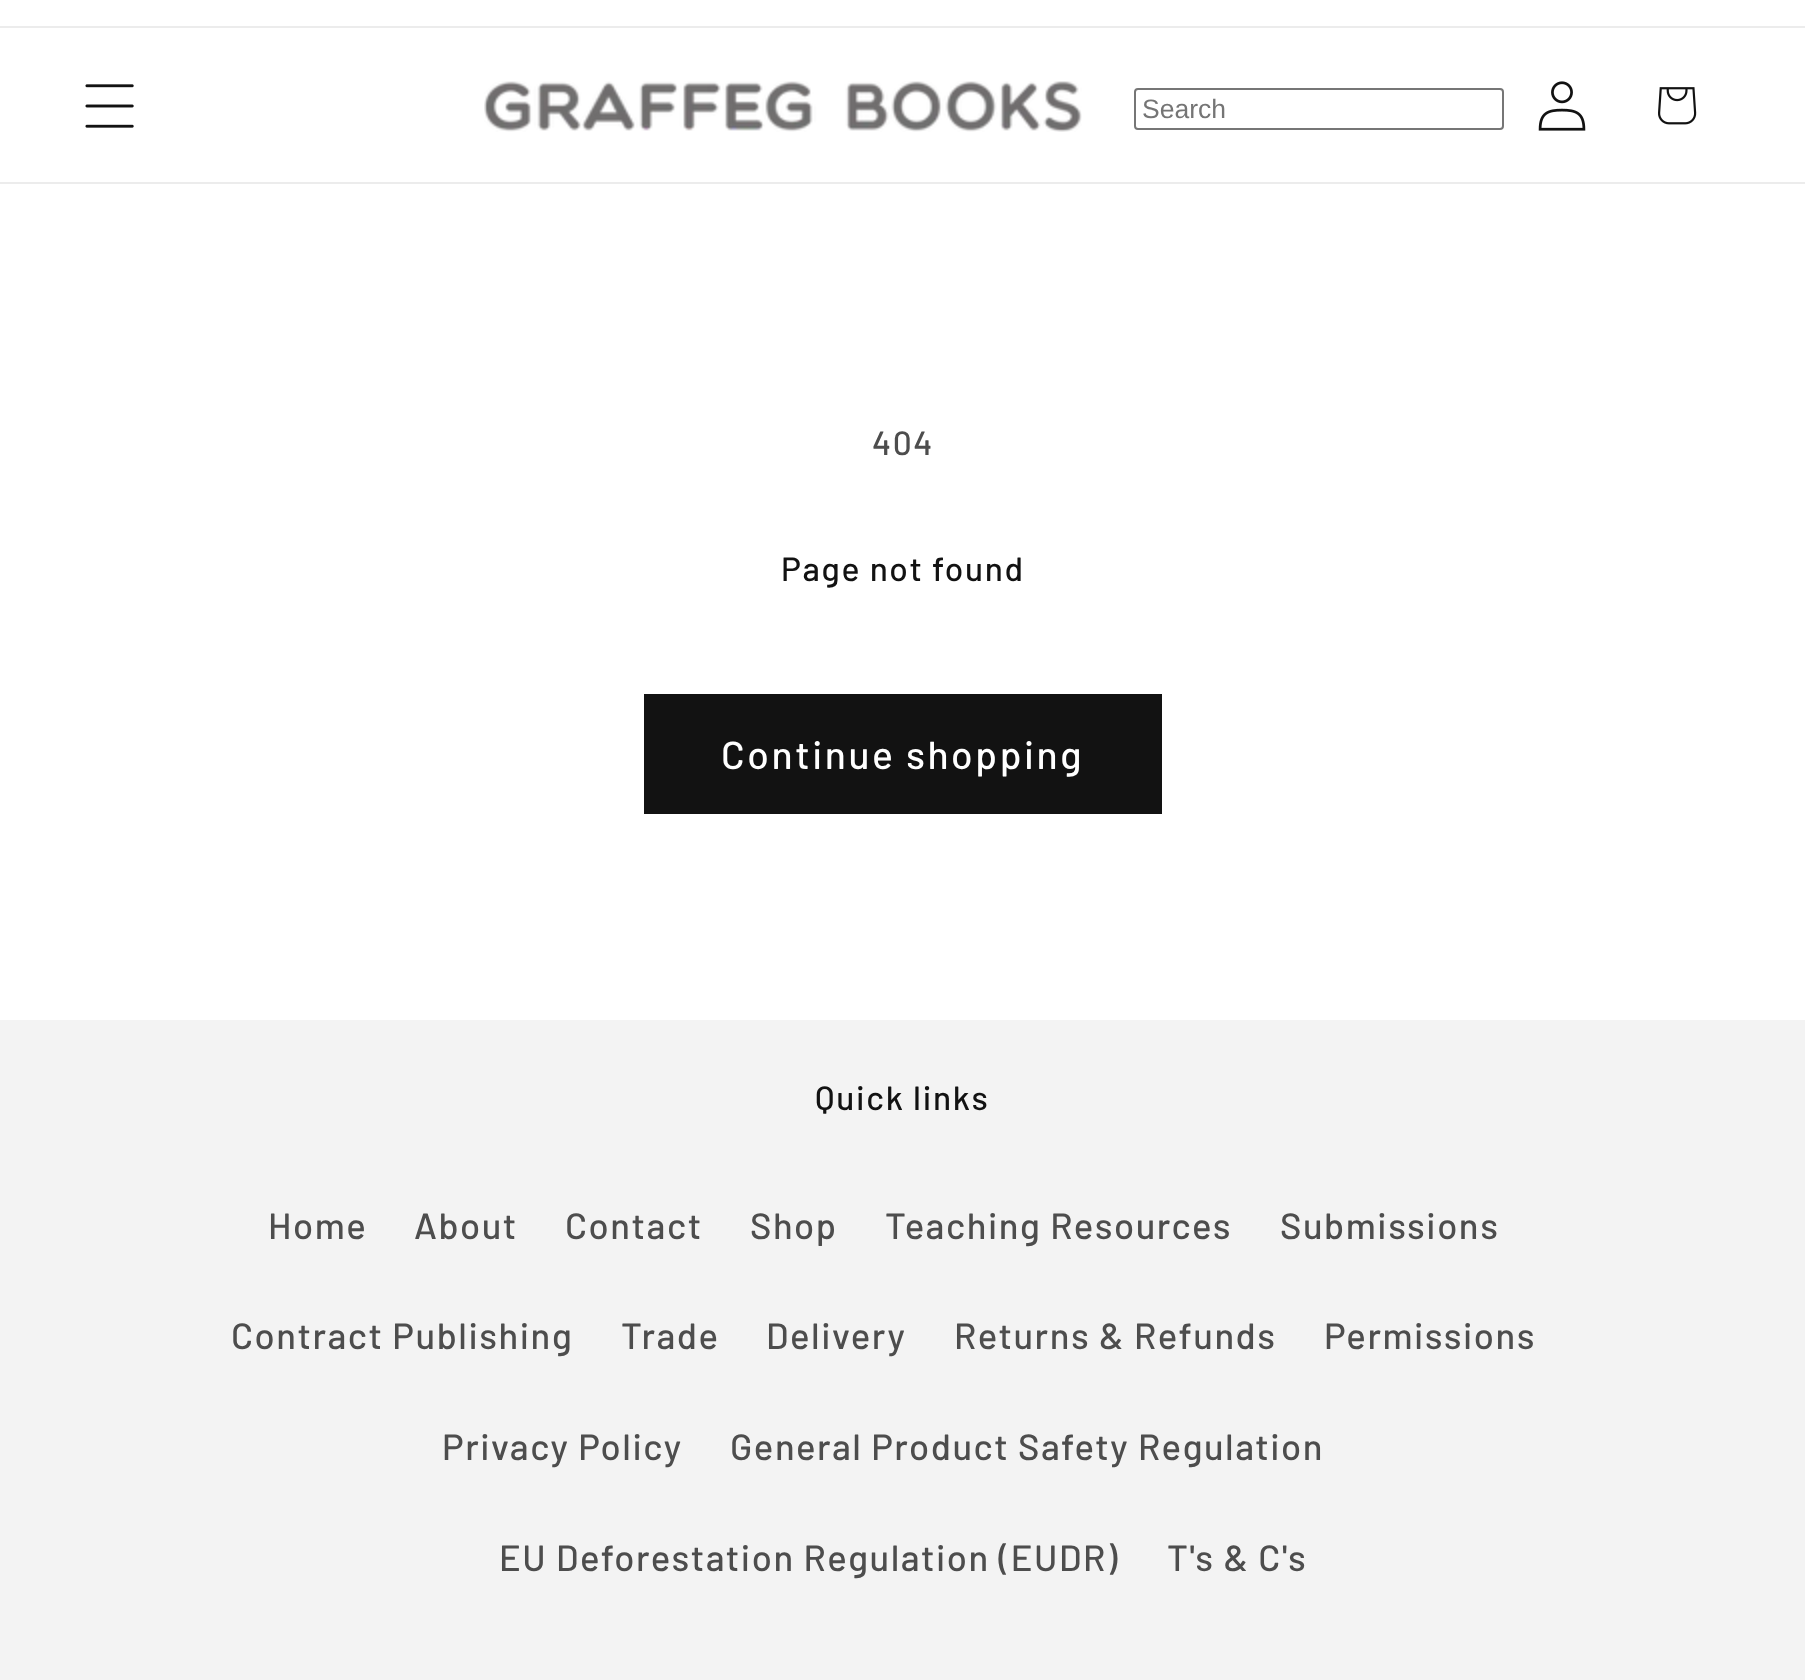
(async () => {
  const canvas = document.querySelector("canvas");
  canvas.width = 1805;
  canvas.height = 1680;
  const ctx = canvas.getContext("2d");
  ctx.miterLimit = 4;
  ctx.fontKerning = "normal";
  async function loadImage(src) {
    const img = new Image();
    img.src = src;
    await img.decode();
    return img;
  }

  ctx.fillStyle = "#ffffff";
  ctx.fillRect(0, 0, 1805, 1680);
  ctx.fillStyle = "#ececec";
  ctx.fillRect(0, 26, 1805, 2);
  ctx.fillRect(0, 182, 1805, 2);
  ctx.drawImage(await loadImage("img/1.png"), 85, 84, 49, 44);
  ctx.drawImage(await loadImage("img/2.png"), 484, 81, 598, 51);
  ctx.beginPath();
  ctx.roundRect(1135, 89, 368, 40, 3);
  ctx.strokeStyle = "#767676";
  ctx.lineWidth = 2;
  ctx.stroke();
  ctx.drawImage(await loadImage("img/3.png"), 1538, 81, 48, 50);
  ctx.drawImage(await loadImage("img/4.png"), 1658, 87, 39, 38);
  ctx.fillStyle = "#121212";
  ctx.fillRect(644, 694, 518, 120);
  ctx.fillStyle = "#f3f3f3";
  ctx.fillRect(0, 1020, 1805, 660);
  ctx.font = "26.5px Liberation Sans";
  ctx.fillStyle = "#757575";
  ctx.fillText("Search", 1142, 118);
  ctx.letterSpacing = "1.55px";
  ctx.font = "500 33.5px Barlow";
  ctx.fillStyle = "#4d4d4d";
  ctx.fillText("404", 872, 455);
  ctx.letterSpacing = "1.75px";
  ctx.fillStyle = "#121212";
  ctx.fillText("Page not found", 781, 581);
  ctx.letterSpacing = "2.6px";
  ctx.font = "500 39px Barlow";
  ctx.fillStyle = "#ffffff";
  ctx.fillText("Continue shopping", 721, 769);
  ctx.letterSpacing = "1.75px";
  ctx.font = "500 33.5px Barlow";
  ctx.fillStyle = "#121212";
  ctx.fillText("Quick links", 815, 1110);
  ctx.letterSpacing = "1.55px";
  ctx.font = "500 36.4px Barlow";
  ctx.fillStyle = "#4d4d4d";
  for (const [text, x, y] of [
    ["Home", 268, 1239],
    ["About", 414, 1239],
    ["Contact", 565, 1239],
    ["Shop", 750, 1239],
    ["Teaching Resources", 885, 1239],
    ["Submissions", 1280, 1239],
    ["Contract Publishing", 231, 1349],
    ["Trade", 621, 1349],
    ["Delivery", 766, 1349],
    ["Returns & Refunds", 954, 1349],
    ["Permissions", 1324, 1349],
    ["Privacy Policy", 442, 1460],
    ["General Product Safety Regulation", 730, 1460],
    ["EU Deforestation Regulation (EUDR)", 499, 1571],
    ["T's & C's", 1167, 1571],
  ]) {
    ctx.fillText(text, x, y);
  }
})();
